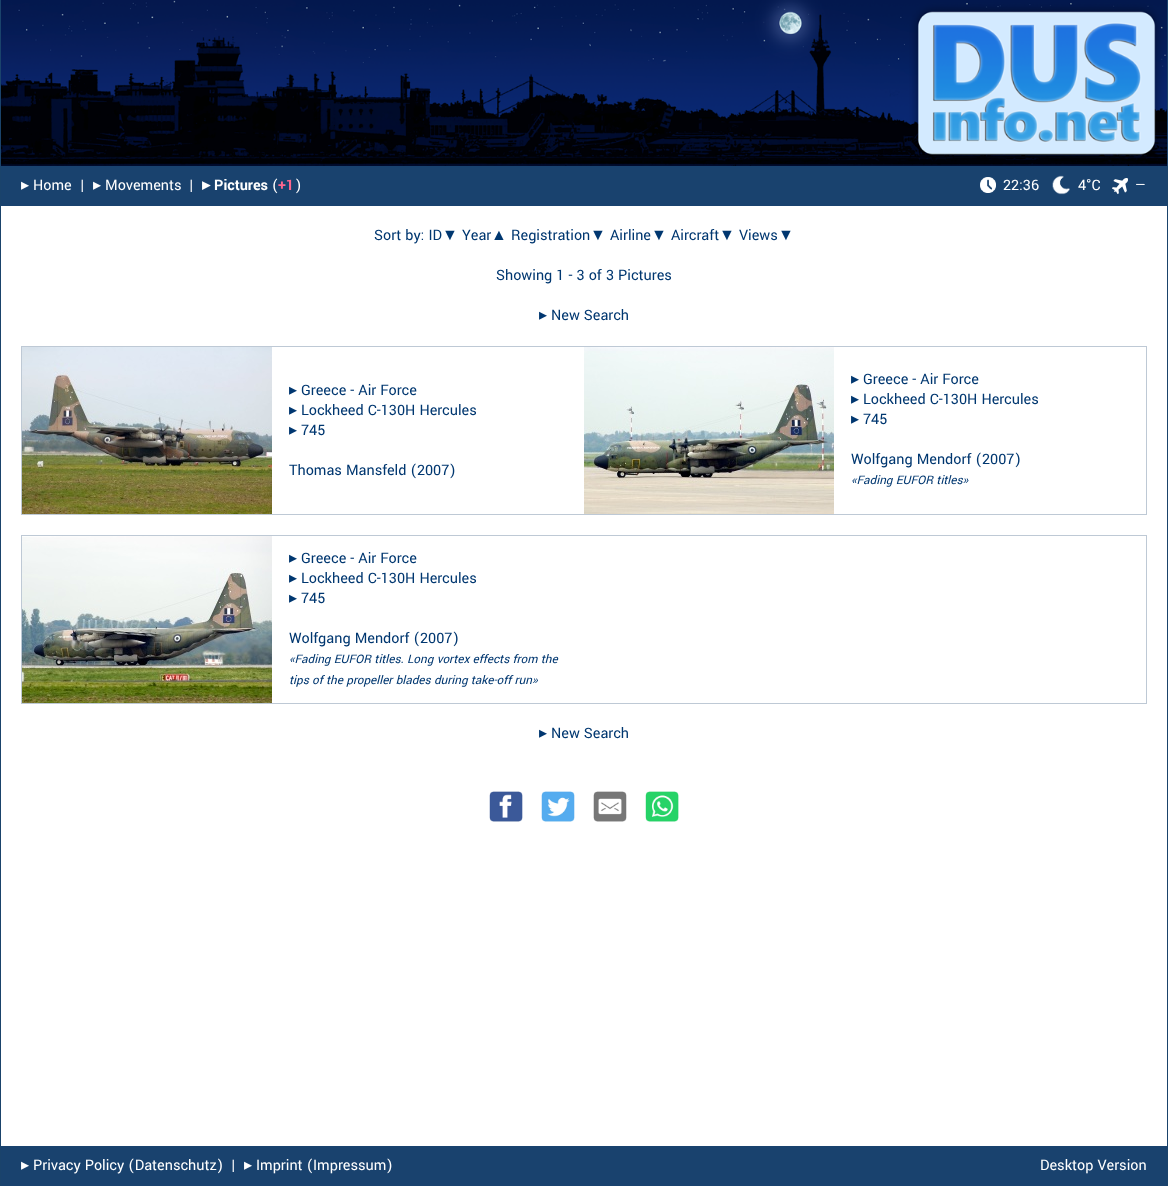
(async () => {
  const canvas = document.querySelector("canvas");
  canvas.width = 1168;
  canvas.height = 1186;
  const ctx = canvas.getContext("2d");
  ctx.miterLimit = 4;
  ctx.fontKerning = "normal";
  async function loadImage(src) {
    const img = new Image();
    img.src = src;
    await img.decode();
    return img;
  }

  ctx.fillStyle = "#ffffff";
  ctx.fillRect(0, 0, 1168, 1186);
  ctx.fillStyle = "#1a436b";
  ctx.fillRect(1167, 0, 1, 1186);
  ctx.fillRect(0, 0, 1, 1186);
  ctx.drawImage(await loadImage("img/1.png"), 1, 0, 1166, 166);
  ctx.fillStyle = "#19426e";
  ctx.fillRect(1, 166, 1166, 40);
  ctx.drawImage(await loadImage("img/2.png"), 980, 177, 16, 16);
  ctx.drawImage(await loadImage("img/3.png"), 1052, 175, 18, 20);
  ctx.drawImage(await loadImage("img/4.png"), 1112, 178, 16, 16);
  for (const [x, y, w, h, color] of [
    [21, 346, 1126, 1, "#bec9d5"],
    [1146, 346, 1, 169, "#bec9d5"],
    [21, 514, 1126, 1, "#bec9d5"],
    [21, 346, 1, 169, "#bec9d5"],
  ]) {
    ctx.fillStyle = color;
    ctx.fillRect(x, y, w, h);
  }
  ctx.drawImage(await loadImage("img/5.png"), 22, 347, 250, 167);
  ctx.drawImage(await loadImage("img/6.png"), 584, 347, 250, 167);
  for (const [x, y, w, h, color] of [
    [21, 535, 1126, 1, "#bec9d5"],
    [1146, 535, 1, 169, "#bec9d5"],
    [21, 703, 1126, 1, "#bec9d5"],
    [21, 535, 1, 169, "#bec9d5"],
  ]) {
    ctx.fillStyle = color;
    ctx.fillRect(x, y, w, h);
  }
  ctx.drawImage(await loadImage("img/7.png"), 22, 536, 250, 167);
  ctx.drawImage(await loadImage("img/8.png"), 489, 791, 34, 31);
  ctx.drawImage(await loadImage("img/9.png"), 541, 791, 34, 31);
  ctx.drawImage(await loadImage("img/10.png"), 593, 791, 34, 31);
  ctx.drawImage(await loadImage("img/11.png"), 645, 791, 34, 31);
  ctx.fillStyle = "#19426e";
  ctx.fillRect(1, 1146, 1166, 40);
  ctx.font = "16px DejaVu Sans";
  ctx.fillStyle = "#ffffff";
  ctx.fillText("▸︎", 21, 190);
  ctx.font = "16px Yantramanav";
  ctx.fillText("Home", 33, 190);
  ctx.fillText("|", 80, 190);
  ctx.font = "16px DejaVu Sans";
  ctx.fillText("▸︎", 93, 190);
  ctx.font = "16px Yantramanav";
  ctx.fillText("Movements", 105, 190);
  ctx.fillText("|", 189, 190);
  ctx.font = "bold 16px DejaVu Sans";
  ctx.fillText("▸︎", 202, 190);
  ctx.font = "bold 16px Yantramanav";
  ctx.fillText("Pictures", 214, 190);
  ctx.font = "16px Yantramanav";
  ctx.fillText("(", 272, 190);
  ctx.font = "bold 16px Yantramanav";
  ctx.fillStyle = "#ff668e";
  ctx.fillText("+1", 278, 190);
  ctx.font = "16px Yantramanav";
  ctx.fillStyle = "#ffffff";
  for (const [text, x, y] of [
    [")", 295, 190],
    ["22:36", 1003, 190],
    ["4°C", 1078, 190],
    ["—", 1135, 190],
  ]) {
    ctx.fillText(text, x, y);
  }
  ctx.fillStyle = "#003770";
  ctx.fillText("Sort by: ID", 374, 240);
  ctx.font = "16px Liberation Sans";
  ctx.fillText("▼", 442, 240);
  ctx.font = "16px Yantramanav";
  ctx.fillText("Year", 462, 240);
  ctx.font = "16px Liberation Sans";
  ctx.fillText("▲", 491, 240);
  ctx.font = "16px Yantramanav";
  ctx.fillText("Registration", 511, 240);
  ctx.font = "16px Liberation Sans";
  ctx.fillText("▼", 590, 240);
  ctx.font = "16px Yantramanav";
  ctx.fillText("Airline", 610, 240);
  ctx.font = "16px Liberation Sans";
  ctx.fillText("▼", 651, 240);
  ctx.font = "16px Yantramanav";
  ctx.fillText("Aircraft", 671, 240);
  ctx.font = "16px Liberation Sans";
  ctx.fillText("▼", 719, 240);
  ctx.font = "16px Yantramanav";
  ctx.fillText("Views", 739, 240);
  ctx.font = "16px Liberation Sans";
  ctx.fillText("▼", 778, 240);
  ctx.font = "16px Yantramanav";
  ctx.fillText("Showing 1 - 3 of 3 Pictures", 496, 280);
  ctx.font = "16px DejaVu Sans";
  ctx.fillText("▸︎", 539, 320);
  ctx.font = "16px Yantramanav";
  ctx.fillText("New Search", 551, 320);
  ctx.font = "16px DejaVu Sans";
  ctx.fillText("▸︎", 289, 395);
  ctx.font = "16px Yantramanav";
  ctx.fillText("Greece - Air Force", 301, 395);
  ctx.font = "16px DejaVu Sans";
  ctx.fillText("▸︎", 289, 415);
  ctx.font = "16px Yantramanav";
  ctx.fillText("Lockheed C-130H Hercules", 301, 415);
  ctx.font = "16px DejaVu Sans";
  ctx.fillText("▸︎", 289, 435);
  ctx.font = "16px Yantramanav";
  ctx.fillText("745", 301, 435);
  ctx.fillText("Thomas Mansfeld (2007)", 289, 475);
  ctx.font = "16px DejaVu Sans";
  ctx.fillText("▸︎", 851, 384);
  ctx.font = "16px Yantramanav";
  ctx.fillText("Greece - Air Force", 863, 384);
  ctx.font = "16px DejaVu Sans";
  ctx.fillText("▸︎", 851, 404);
  ctx.font = "16px Yantramanav";
  ctx.fillText("Lockheed C-130H Hercules", 863, 404);
  ctx.font = "16px DejaVu Sans";
  ctx.fillText("▸︎", 851, 424);
  ctx.font = "16px Yantramanav";
  ctx.fillText("745", 863, 424);
  ctx.fillText("Wolfgang Mendorf (2007)", 851, 464);
  ctx.font = "italic 13px Yantramanav";
  ctx.fillText("«Fading EUFOR titles»", 851, 484);
  ctx.font = "16px DejaVu Sans";
  ctx.fillText("▸︎", 289, 563);
  ctx.font = "16px Yantramanav";
  ctx.fillText("Greece - Air Force", 301, 563);
  ctx.font = "16px DejaVu Sans";
  ctx.fillText("▸︎", 289, 583);
  ctx.font = "16px Yantramanav";
  ctx.fillText("Lockheed C-130H Hercules", 301, 583);
  ctx.font = "16px DejaVu Sans";
  ctx.fillText("▸︎", 289, 603);
  ctx.font = "16px Yantramanav";
  ctx.fillText("745", 301, 603);
  ctx.fillText("Wolfgang Mendorf (2007)", 289, 643);
  ctx.font = "italic 13px Yantramanav";
  ctx.fillText("«Fading EUFOR titles. Long vortex effects from the", 289, 663);
  ctx.fillText("tips of the propeller blades during take-off run»", 289, 684);
  ctx.font = "16px DejaVu Sans";
  ctx.fillText("▸︎", 539, 738);
  ctx.font = "16px Yantramanav";
  ctx.fillText("New Search", 551, 738);
  ctx.font = "16px DejaVu Sans";
  ctx.fillStyle = "#ffffff";
  ctx.fillText("▸︎", 21, 1170);
  ctx.font = "16px Yantramanav";
  ctx.fillText("Privacy Policy (Datenschutz)", 33, 1170);
  ctx.fillText("|", 231, 1170);
  ctx.font = "16px DejaVu Sans";
  ctx.fillText("▸︎", 244, 1170);
  ctx.font = "16px Yantramanav";
  ctx.fillText("Imprint (Impressum)", 256, 1170);
  ctx.fillText("Desktop Version", 1040, 1170);
})();
